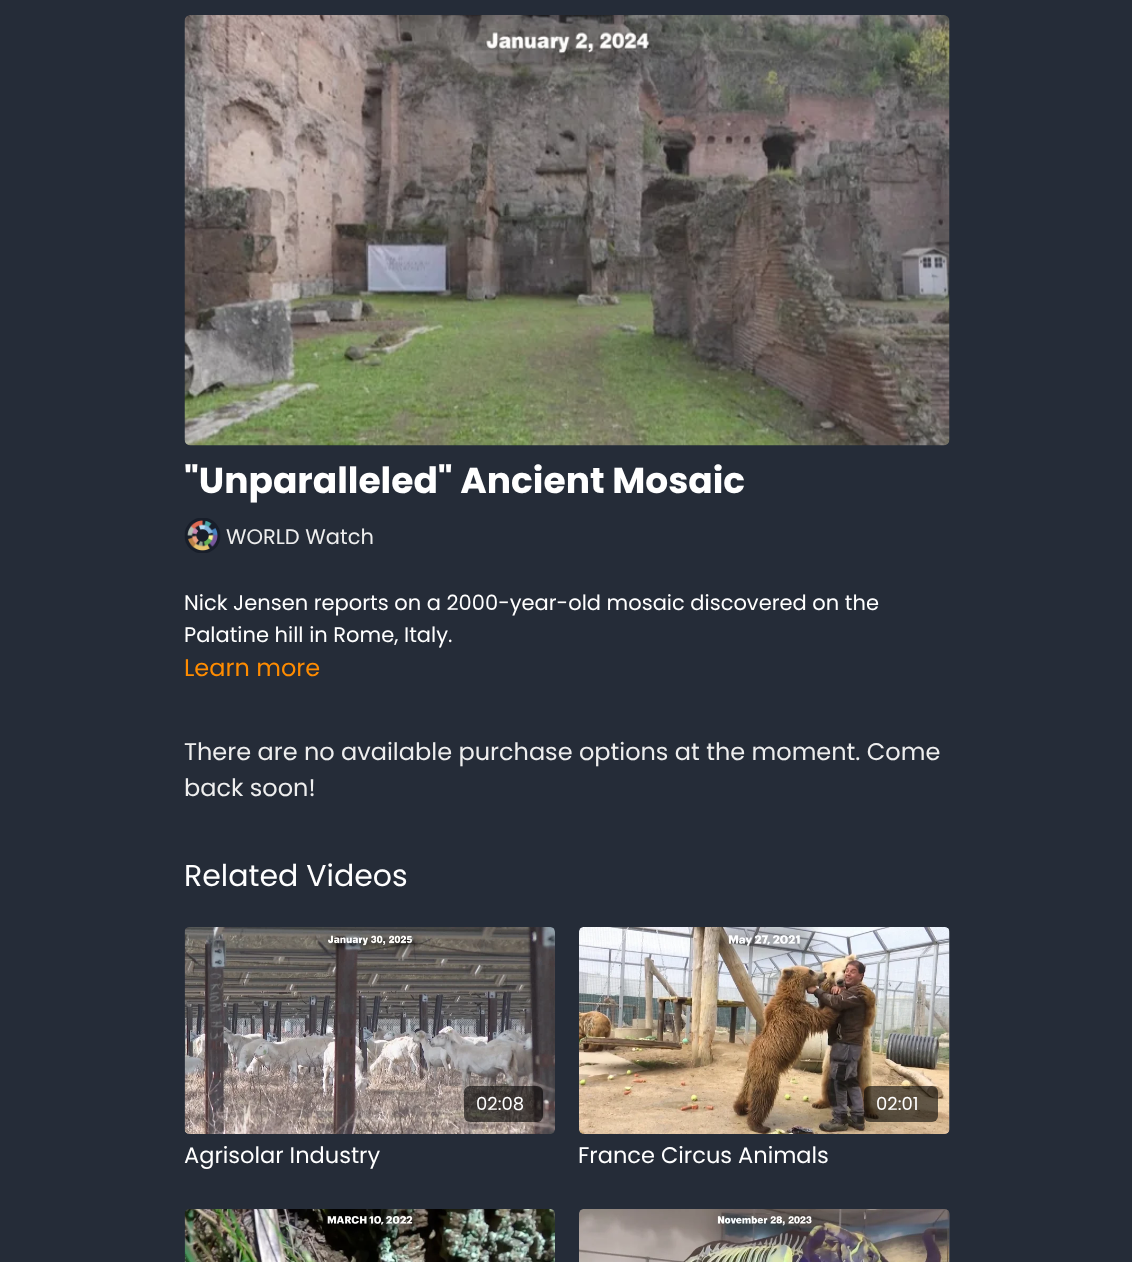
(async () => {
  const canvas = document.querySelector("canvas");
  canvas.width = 1132;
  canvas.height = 1262;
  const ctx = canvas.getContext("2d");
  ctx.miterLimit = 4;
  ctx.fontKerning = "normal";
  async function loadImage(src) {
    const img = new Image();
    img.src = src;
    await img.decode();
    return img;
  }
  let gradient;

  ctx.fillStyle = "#252c38";
  ctx.fillRect(0, 0, 1132, 1262);
  ctx.drawImage(await loadImage("img/1.png"), 184, 15, 766, 431);
  ctx.drawImage(await loadImage("img/2.png"), 184, 518, 37, 35);
  ctx.drawImage(await loadImage("img/3.png"), 184, 927, 371, 207);
  ctx.fillStyle = "rgba(0, 0, 0, 0.6)";
  ctx.beginPath();
  ctx.roundRect(464, 1086, 79, 36, 6);
  ctx.fill();
  gradient = ctx.createLinearGradient(579, 1031, 950, 1031);
  gradient.addColorStop(0.08, "#414752");
  gradient.addColorStop(0.18, "#3f4550");
  gradient.addColorStop(0.33, "#3d434e");
  ctx.fillStyle = gradient;
  ctx.beginPath();
  ctx.roundRect(579, 927, 371, 207, 6);
  ctx.fill();
  ctx.drawImage(await loadImage("img/4.png"), 579, 927, 371, 207);
  ctx.fillStyle = "rgba(0, 0, 0, 0.6)";
  ctx.beginPath();
  ctx.roundRect(864, 1086, 74, 36, 6);
  ctx.fill();
  ctx.drawImage(await loadImage("img/5.png"), 184, 1209, 371, 53);
  gradient = ctx.createLinearGradient(579, 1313, 950, 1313);
  gradient.addColorStop(0.08, "#414752");
  gradient.addColorStop(0.18, "#3f4550");
  gradient.addColorStop(0.33, "#3d434e");
  ctx.fillStyle = gradient;
  ctx.beginPath();
  ctx.roundRect(579, 1209, 371, 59, 6);
  ctx.fill();
  ctx.drawImage(await loadImage("img/6.png"), 579, 1209, 371, 53);
  ctx.font = "bold 36px Poppins";
  ctx.fillStyle = "#ffffff";
  ctx.fillText("\"Unparalleled\" Ancient Mosaic", 184, 493);
  ctx.font = "21px Poppins";
  ctx.fillStyle = "#eeeeee";
  ctx.fillText("WORLD Watch", 226, 544);
  ctx.fillStyle = "#ffffff";
  ctx.fillText("Nick Jensen reports on a 2000-year-old mosaic discovered on the", 184, 610);
  ctx.fillText("Palatine hill in Rome, Italy.", 184, 642);
  ctx.font = "24px Poppins";
  ctx.fillStyle = "#ff8c00";
  ctx.fillText("Learn more", 184, 676);
  ctx.fillStyle = "#eeeeee";
  ctx.fillText("There are no available purchase options at the moment. Come", 184, 760);
  ctx.fillText("back soon!", 184, 796);
  ctx.font = "30px Poppins";
  ctx.fillStyle = "#ffffff";
  ctx.fillText("Related Videos", 184, 886);
  ctx.font = "18px Poppins";
  ctx.fillText("02:08", 476, 1110);
  ctx.font = "22.5px Poppins";
  ctx.fillText("Agrisolar Industry", 184, 1163);
  ctx.font = "18px Poppins";
  ctx.fillText("02:01", 876, 1110);
  ctx.font = "22.5px Poppins";
  ctx.fillText("France Circus Animals", 578, 1163);
})();
